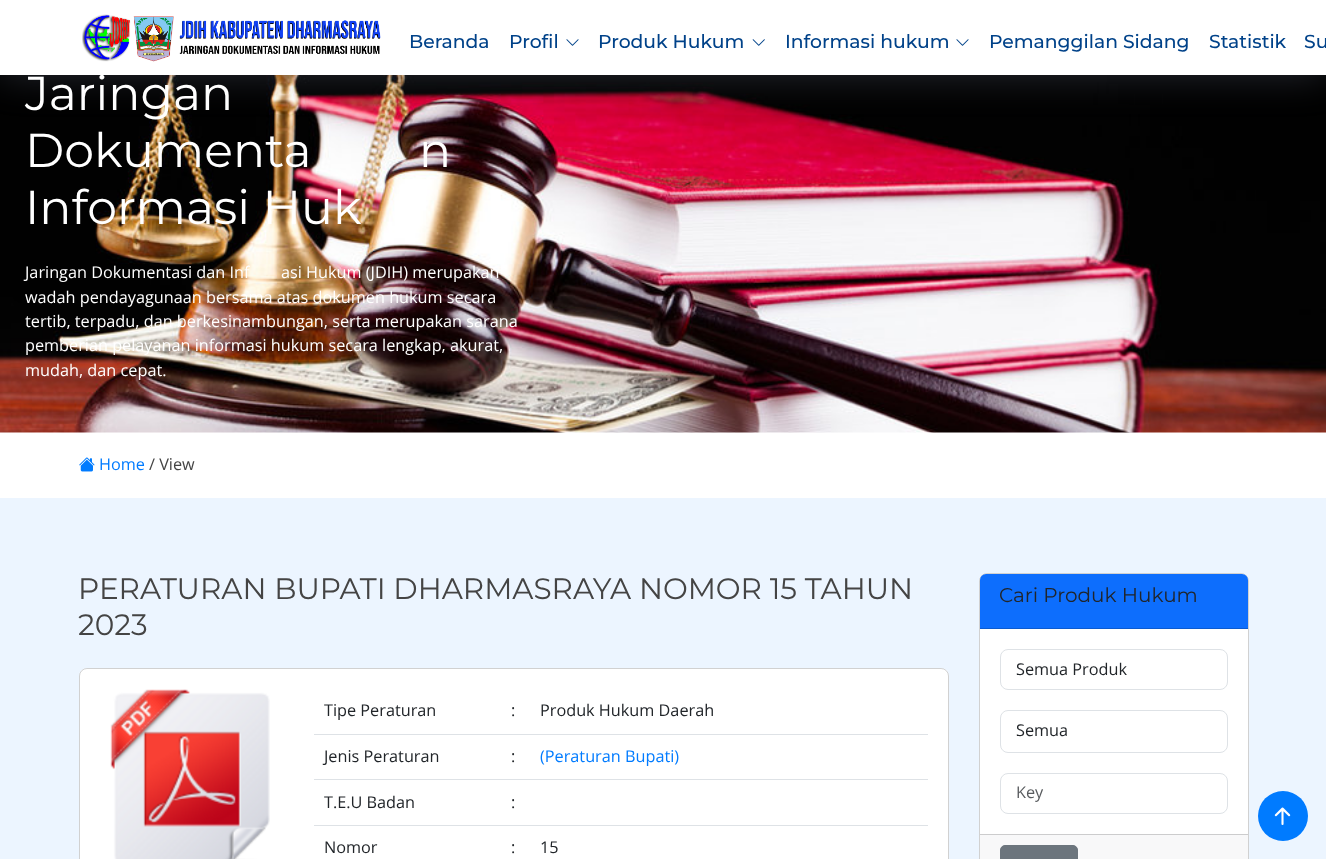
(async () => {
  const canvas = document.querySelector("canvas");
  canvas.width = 1326;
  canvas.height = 859;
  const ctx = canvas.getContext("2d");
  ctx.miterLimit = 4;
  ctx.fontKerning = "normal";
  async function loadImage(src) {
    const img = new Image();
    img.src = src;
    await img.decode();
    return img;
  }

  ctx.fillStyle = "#ffffff";
  ctx.fillRect(0, 0, 1326, 859);
  ctx.drawImage(await loadImage("img/4.png"), 0, 75, 1326, 358);
  ctx.fillStyle = "rgba(127, 137, 161, 0.3)";
  ctx.filter = "blur(19px)";
  ctx.beginPath();
  ctx.rect(0, 0, 1326, 75);
  ctx.fill();
  ctx.filter = "none";
  ctx.fillStyle = "#ffffff";
  ctx.fillRect(0, 0, 1326, 75);
  ctx.drawImage(await loadImage("img/1.png"), 82, 14, 299, 48);
  ctx.drawImage(await loadImage("img/2.png"), 566, 39, 13, 7);
  ctx.drawImage(await loadImage("img/3.png"), 752, 39, 13, 7);
  ctx.drawImage(await loadImage("img/2.png"), 956, 39, 13, 7);
  ctx.drawImage(await loadImage("img/5.png"), 79, 457, 16, 15);
  ctx.fillStyle = "#ecf5ff";
  ctx.fillRect(0, 498, 1326, 361);
  ctx.fillStyle = "#ffffff";
  ctx.beginPath();
  ctx.roundRect(79, 668, 870, 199, 8);
  ctx.fill();
  ctx.beginPath();
  ctx.roundRect(79.5, 668.5, 869, 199, 7.5);
  ctx.strokeStyle = "rgba(0, 0, 0, 0.18)";
  ctx.stroke();
  ctx.drawImage(await loadImage("img/6.png"), 110, 689, 160, 170);
  for (const [x, y, w, h, color] of [
    [314, 734, 614, 1, "#dee2e6"],
    [314, 779, 614, 1, "#dee2e6"],
    [314, 825, 614, 1, "#dee2e6"],
  ]) {
    ctx.fillStyle = color;
    ctx.fillRect(x, y, w, h);
  }
  ctx.fillStyle = "#ffffff";
  ctx.beginPath();
  ctx.roundRect(979, 573, 270, 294, 8);
  ctx.fill();
  ctx.beginPath();
  ctx.roundRect(979.5, 573.5, 269, 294, 7.5);
  ctx.stroke();
  ctx.fillStyle = "#0d6efd";
  ctx.beginPath();
  ctx.roundRect(980, 574, 268, 55, [6, 6, 0, 0]);
  ctx.fill();
  ctx.fillStyle = "#0b5bd0";
  ctx.fillRect(980, 628, 268, 1);
  ctx.beginPath();
  ctx.roundRect(1000.5, 649.5, 227, 40, 7.5);
  ctx.strokeStyle = "#dee2e6";
  ctx.stroke();
  ctx.beginPath();
  ctx.roundRect(1000.5, 710.5, 227, 42, 7.5);
  ctx.stroke();
  ctx.beginPath();
  ctx.roundRect(1000.5, 773.5, 227, 40, 7.5);
  ctx.stroke();
  ctx.fillStyle = "#f8f8f9";
  ctx.fillRect(980, 835, 268, 24);
  ctx.fillStyle = "#cccccd";
  ctx.fillRect(980, 834, 268, 1);
  ctx.fillStyle = "#6c757d";
  ctx.beginPath();
  ctx.roundRect(1000.5, 845.5, 77, 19, 4.5);
  ctx.fill();
  ctx.strokeStyle = "#6c757d";
  ctx.stroke();
  ctx.fillStyle = "#007bff";
  ctx.beginPath();
  ctx.arc(1283, 816, 25, 0, Math.PI * 2);
  ctx.fill();
  ctx.drawImage(await loadImage("img/7.png"), 1274, 807, 17, 18);
  ctx.font = "500 18.75px Montserrat";
  ctx.fillStyle = "#004289";
  for (const [text, x, y] of [
    ["Beranda", 409, 48],
    ["Profil", 509, 48],
    ["Produk Hukum", 598, 48],
    ["Informasi hukum", 785, 48],
    ["Pemanggilan Sidang", 989, 48],
    ["Statistik", 1209, 48],
    ["Su", 1304, 48],
  ]) {
    ctx.fillText(text, x, y);
  }
  ctx.font = "47.5px Montserrat";
  ctx.fillStyle = "#ffffff";
  for (const [text, x, y] of [
    ["Jaringan", 25, 110],
    ["Dokumenta", 25, 167],
    ["n", 419, 167],
    ["Informasi Huk", 25, 224],
  ]) {
    ctx.fillText(text, x, y);
  }
  ctx.font = "16.25px Open Sans";
  for (const [text, x, y] of [
    ["Jaringan Dokumentasi dan Inf", 25, 278],
    ["asi Hukum (JDIH) merupakan", 281, 278],
    ["wadah pendayagunaan bersama atas dokumen hukum secara", 25, 303],
    ["tertib, terpadu, dan berkesinambungan, serta merupakan sarana", 25, 327],
    ["pemberian pelayanan informasi hukum secara lengkap, akurat,", 25, 351],
    ["mudah, dan cepat.", 25, 376],
  ]) {
    ctx.fillText(text, x, y);
  }
  ctx.fillStyle = "#007bff";
  ctx.fillText("Home", 99, 470);
  ctx.fillStyle = "#444444";
  ctx.fillText("/ View", 149, 470);
  ctx.font = "29.5px Montserrat";
  ctx.fillText("PERATURAN BUPATI DHARMASRAYA NOMOR 15 TAHUN", 78, 599);
  ctx.fillText("2023", 78, 635);
  ctx.font = "16.25px Open Sans";
  ctx.fillStyle = "#212529";
  for (const [text, x, y] of [
    ["Tipe Peraturan", 324, 716],
    [":", 511, 716],
    ["Produk Hukum Daerah", 540, 716],
    ["Jenis Peraturan", 324, 762],
    [":", 511, 762],
  ]) {
    ctx.fillText(text, x, y);
  }
  ctx.fillStyle = "#007bff";
  ctx.fillText("(Peraturan Bupati)", 540, 762);
  ctx.fillStyle = "#212529";
  for (const [text, x, y] of [
    ["T.E.U Badan", 324, 808],
    [":", 511, 808],
    ["Nomor", 324, 853],
    [":", 511, 853],
    ["15", 540, 853],
  ]) {
    ctx.fillText(text, x, y);
  }
  ctx.font = "20px Montserrat";
  ctx.fillText("Cari Produk Hukum", 999, 602);
  ctx.font = "16.25px Open Sans";
  ctx.fillText("Semua Produk", 1016, 675);
  ctx.fillText("Semua", 1016, 736);
  ctx.fillStyle = "#595c5f";
  ctx.fillText("Key", 1016, 798);
})();
